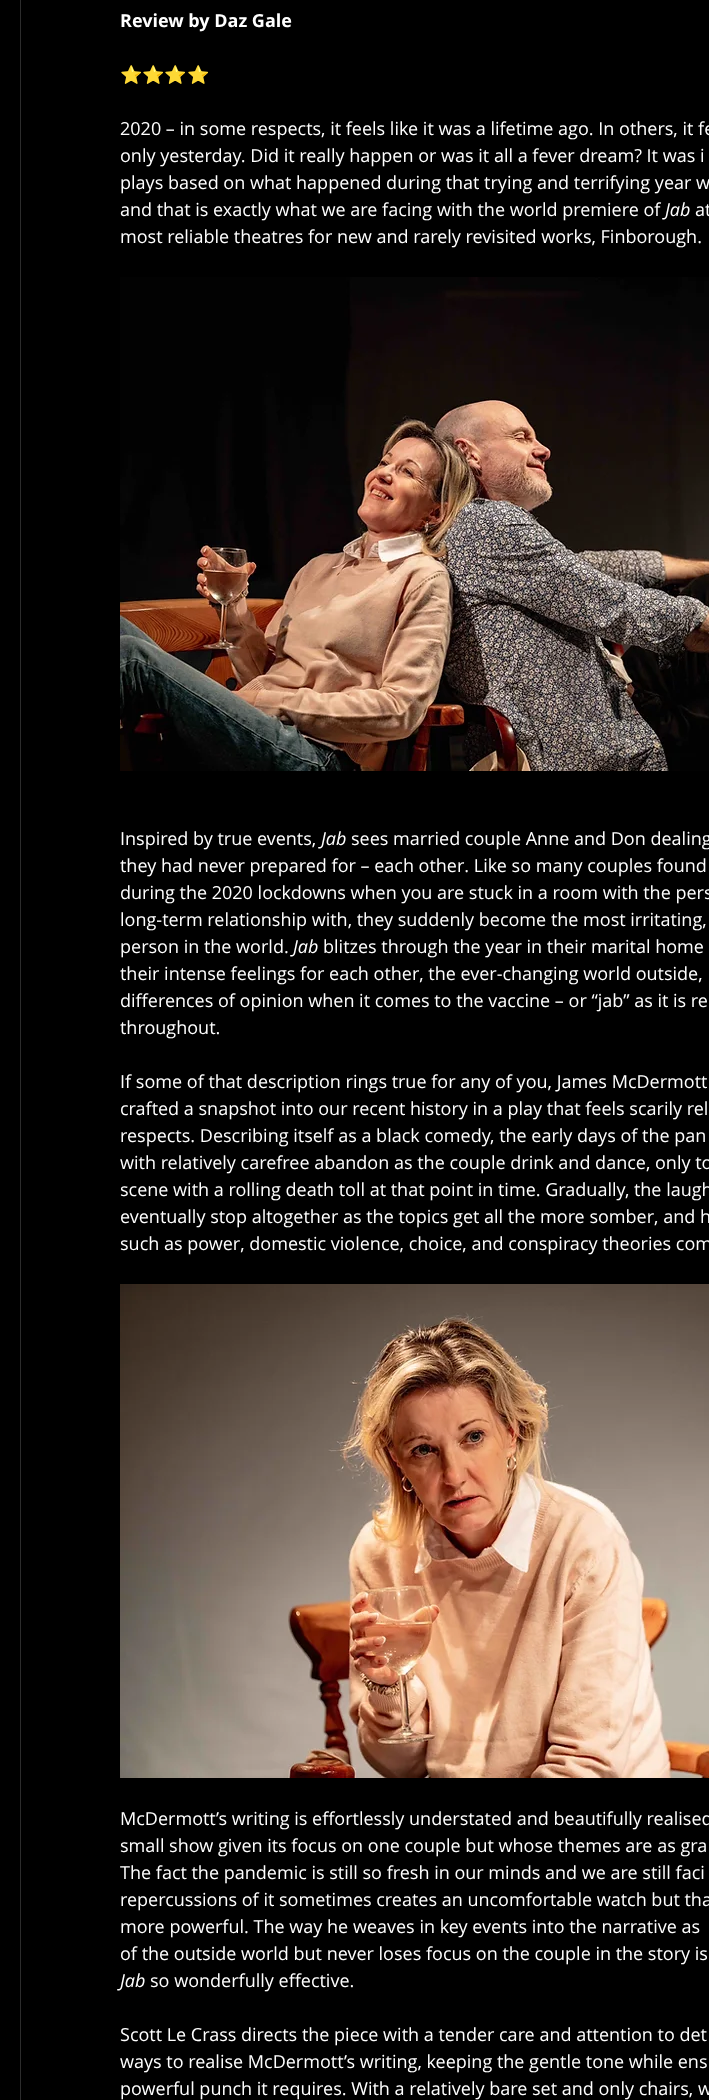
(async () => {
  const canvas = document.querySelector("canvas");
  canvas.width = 709;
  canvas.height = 2100;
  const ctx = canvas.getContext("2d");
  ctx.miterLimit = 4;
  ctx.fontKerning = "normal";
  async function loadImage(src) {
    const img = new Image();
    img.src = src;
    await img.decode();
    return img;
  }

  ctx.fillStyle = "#000000";
  ctx.fillRect(0, 0, 709, 2100);
  ctx.strokeStyle = "#2c2c2c";
  ctx.strokeRect(20.5, -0.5, 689, 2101);
  ctx.drawImage(await loadImage("img/1.png"), 120, 277, 589, 494);
  ctx.drawImage(await loadImage("img/2.png"), 120, 1284, 589, 494);
  ctx.font = "bold 18px Open Sans";
  ctx.fillStyle = "#ffffff";
  ctx.fillText("Review by Daz Gale", 120, 27);
  ctx.font = "18px Noto Color Emoji";
  ctx.fillText("⭐️⭐️⭐️⭐️", 120, 81);
  ctx.font = "18px Open Sans";
  for (const [text, x, y] of [
    ["2020 – in some respects, it feels like it was a lifetime ago. In others, it fe", 120, 135],
    ["only yesterday. Did it really happen or was it all a fever dream? It was i", 120, 162],
    ["plays based on what happened during that trying and terrifying year w", 120, 189],
    ["and that is exactly what we are facing with the world premiere of", 120, 216],
  ]) {
    ctx.fillText(text, x, y);
  }
  ctx.font = "italic 18px Open Sans";
  ctx.fillText("Jab", 665, 216);
  ctx.font = "18px Open Sans";
  for (const [text, x, y] of [
    ["at", 695, 216],
    ["most reliable theatres for new and rarely revisited works, Finborough.", 120, 243],
    ["Inspired by true events,", 120, 845],
  ]) {
    ctx.fillText(text, x, y);
  }
  ctx.font = "italic 18px Open Sans";
  ctx.fillText("Jab", 321, 845);
  ctx.font = "18px Open Sans";
  for (const [text, x, y] of [
    ["sees married couple Anne and Don dealing", 351, 845],
    ["they had never prepared for – each other. Like so many couples found", 120, 872],
    ["during the 2020 lockdowns when you are stuck in a room with the pers", 120, 899],
    ["long-term relationship with, they suddenly become the most irritating,", 120, 926],
    ["person in the world.", 120, 953],
  ]) {
    ctx.fillText(text, x, y);
  }
  ctx.font = "italic 18px Open Sans";
  ctx.fillText("Jab", 293, 953);
  ctx.font = "18px Open Sans";
  for (const [text, x, y] of [
    ["blitzes through the year in their marital home", 323, 953],
    ["their intense feelings for each other, the ever-changing world outside,", 120, 980],
    ["differences of opinion when it comes to the vaccine – or “jab” as it is re", 120, 1007],
    ["throughout.", 120, 1034],
    ["If some of that description rings true for any of you, James McDermott", 120, 1088],
    ["crafted a snapshot into our recent history in a play that feels scarily rel", 120, 1115],
    ["respects. Describing itself as a black comedy, the early days of the pan", 120, 1142],
    ["with relatively carefree abandon as the couple drink and dance, only to", 120, 1169],
    ["scene with a rolling death toll at that point in time. Gradually, the laugh", 120, 1196],
    ["eventually stop altogether as the topics get all the more somber, and h", 120, 1223],
    ["such as power, domestic violence, choice, and conspiracy theories com", 120, 1250],
    ["McDermott’s writing is effortlessly understated and beautifully realised", 120, 1825],
    ["small show given its focus on one couple but whose themes are as gra", 120, 1852],
    ["The fact the pandemic is still so fresh in our minds and we are still faci", 120, 1879],
    ["repercussions of it sometimes creates an uncomfortable watch but tha", 120, 1906],
    ["more powerful. The way he weaves in key events into the narrative as", 120, 1933],
    ["of the outside world but never loses focus on the couple in the story is", 120, 1960],
  ]) {
    ctx.fillText(text, x, y);
  }
  ctx.font = "italic 18px Open Sans";
  ctx.fillText("Jab", 120, 1987);
  ctx.font = "18px Open Sans";
  for (const [text, x, y] of [
    ["so wonderfully effective.", 150, 1987],
    ["Scott Le Crass directs the piece with a tender care and attention to det", 120, 2041],
    ["ways to realise McDermott’s writing, keeping the gentle tone while ens", 120, 2068],
    ["powerful punch it requires. With a relatively bare set and only chairs, w", 120, 2095],
  ]) {
    ctx.fillText(text, x, y);
  }
})();
